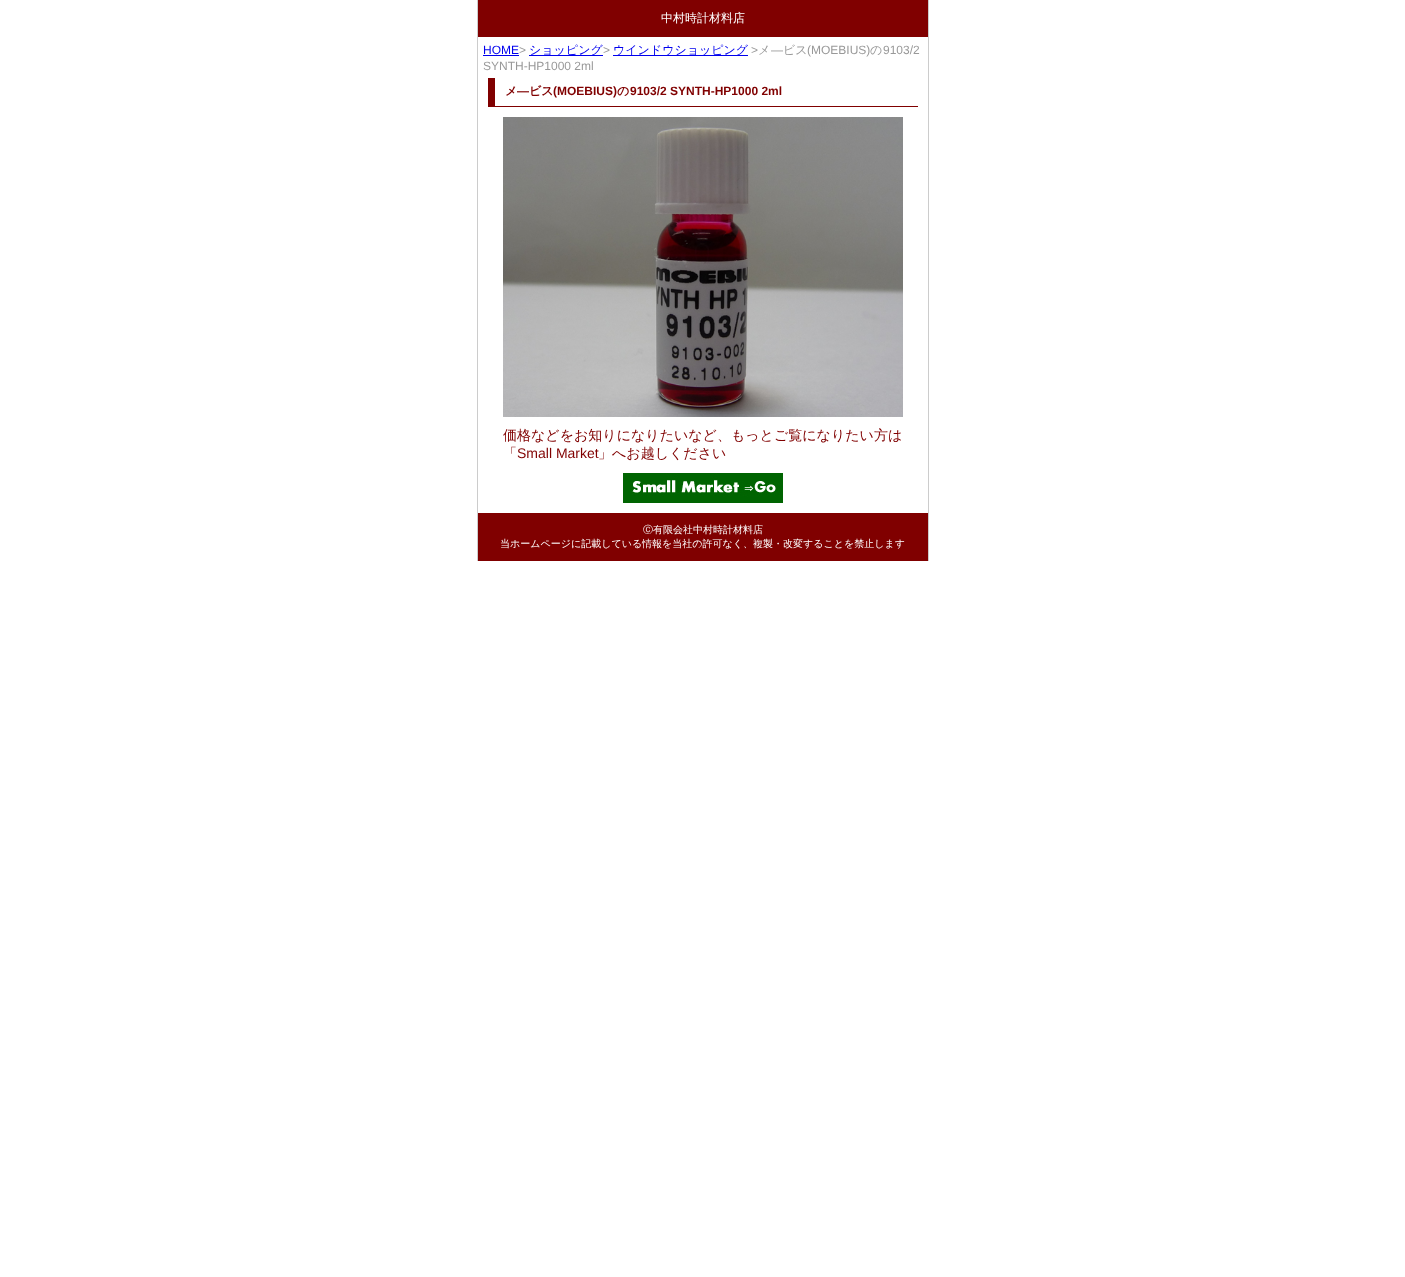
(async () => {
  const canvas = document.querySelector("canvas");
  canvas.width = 1405;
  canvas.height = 1277;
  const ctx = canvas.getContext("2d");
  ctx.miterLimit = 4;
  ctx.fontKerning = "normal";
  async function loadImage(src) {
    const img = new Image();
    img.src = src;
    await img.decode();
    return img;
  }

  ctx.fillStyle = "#ffffff";
  ctx.fillRect(0, 0, 1405, 1277);
  for (const [x, y, w, h, color] of [
    [928, 0, 1, 561, "#cccccc"],
    [477, 0, 1, 561, "#cccccc"],
    [478, 0, 450, 37, "#800000"],
    [483, 55, 36, 1, "#0000ee"],
    [529, 55, 74, 1, "#0000ee"],
    [613, 55, 135, 1, "#0000ee"],
    [488, 106, 430, 1, "#800000"],
    [488, 78, 7, 29, "#800000"],
  ]) {
    ctx.fillStyle = color;
    ctx.fillRect(x, y, w, h);
  }
  ctx.drawImage(await loadImage("img/1.png"), 503, 117, 400, 300);
  ctx.drawImage(await loadImage("img/2.png"), 623, 473, 160, 30);
  ctx.fillRect(478, 513, 450, 48);
  ctx.font = "500 12px WenQuanYi Zen Hei";
  ctx.fillStyle = "#ffffff";
  ctx.fillText("中村時計材料店", 661, 22);
  ctx.font = "12px Liberation Sans";
  ctx.fillStyle = "#0000ee";
  ctx.fillText("HOME", 483, 54);
  ctx.fillStyle = "#999999";
  ctx.fillText(">", 519, 54);
  ctx.font = "500 12px WenQuanYi Zen Hei";
  ctx.fillStyle = "#0000ee";
  ctx.fillText("ショッピング", 529, 54);
  ctx.font = "12px Liberation Sans";
  ctx.fillStyle = "#999999";
  ctx.fillText(">", 603, 54);
  ctx.font = "500 12px WenQuanYi Zen Hei";
  ctx.fillStyle = "#0000ee";
  ctx.fillText("ウインドウショッピング", 613, 54);
  ctx.font = "12px Liberation Sans";
  ctx.fillStyle = "#999999";
  ctx.fillText(">", 751, 54);
  ctx.font = "500 12px WenQuanYi Zen Hei";
  ctx.fillText("メ", 758, 54);
  ctx.font = "12px Liberation Sans";
  ctx.fillText("―", 771, 54);
  ctx.font = "500 12px WenQuanYi Zen Hei";
  ctx.fillText("ビス", 783, 54);
  ctx.font = "12px Liberation Sans";
  ctx.fillText("(MOEBIUS)", 807, 54);
  ctx.font = "500 12px WenQuanYi Zen Hei";
  ctx.fillText("の", 870, 54);
  ctx.font = "12px Liberation Sans";
  ctx.fillText("9103/2", 883, 54);
  ctx.fillText("SYNTH-HP1000 2ml", 483, 70);
  ctx.font = "bold 12px WenQuanYi Zen Hei";
  ctx.fillStyle = "#800000";
  ctx.fillText("メ", 505, 95);
  ctx.font = "bold 12px Liberation Sans";
  ctx.fillText("―", 517, 95);
  ctx.font = "bold 12px WenQuanYi Zen Hei";
  ctx.fillText("ビス", 529, 95);
  ctx.font = "bold 12px Liberation Sans";
  ctx.fillText("(MOEBIUS)", 553, 95);
  ctx.font = "bold 12px WenQuanYi Zen Hei";
  ctx.fillText("の", 617, 95);
  ctx.font = "bold 12px Liberation Sans";
  ctx.fillText("9103/2 SYNTH-HP1000 2ml", 630, 95);
  ctx.font = "500 14px WenQuanYi Zen Hei";
  ctx.fillText("価格などをお知りになりたいなど、もっとご覧になりたい方は", 503, 440);
  ctx.fillText("「", 503, 458);
  ctx.font = "14px Liberation Sans";
  ctx.fillText("Small Market", 517, 458);
  ctx.font = "500 14px WenQuanYi Zen Hei";
  ctx.fillText("」へお越しください", 598, 458);
  ctx.font = "500 10px WenQuanYi Zen Hei";
  ctx.fillStyle = "#ffffff";
  ctx.fillText("Ⓒ有限会社中村時計材料店", 643, 533);
  ctx.fillText("当ホームページに記載している情報を当社の許可なく、複製・改変することを禁止します", 500, 547);
})();
